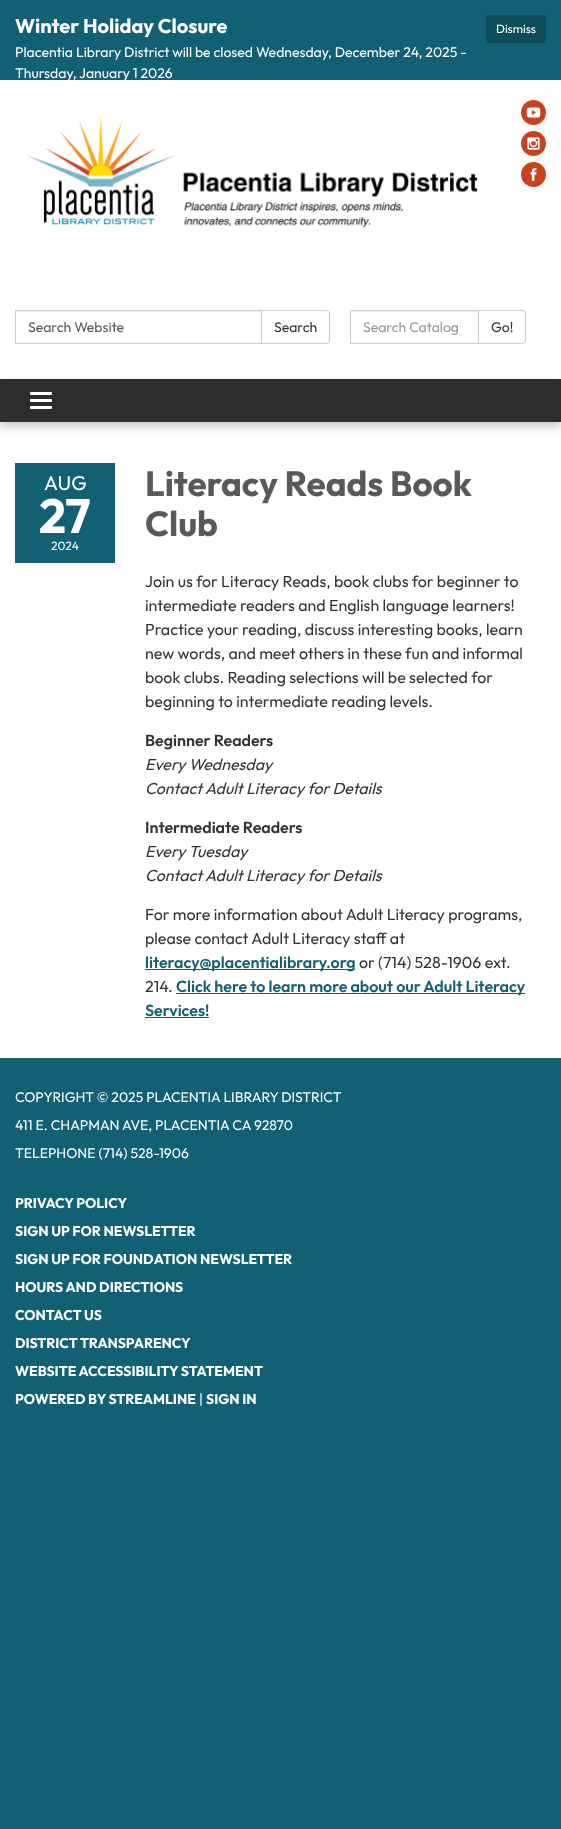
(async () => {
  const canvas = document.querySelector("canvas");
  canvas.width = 561;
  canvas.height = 1829;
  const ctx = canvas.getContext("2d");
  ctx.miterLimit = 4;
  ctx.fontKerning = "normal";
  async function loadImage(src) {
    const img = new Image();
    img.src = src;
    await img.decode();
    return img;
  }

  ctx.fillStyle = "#116073";
  ctx.fillRect(0, 0, 561, 1829);
  ctx.fillStyle = "#0e4d5c";
  ctx.fillRect(486, 15, 60, 28);
  ctx.fillStyle = "#ffffff";
  ctx.fillRect(0, 80, 561, 299);
  ctx.drawImage(await loadImage("img/1.png"), 26, 116, 452, 112);
  ctx.drawImage(await loadImage("img/2.png"), 521, 100, 25, 25);
  ctx.drawImage(await loadImage("img/3.png"), 521, 131, 25, 25);
  ctx.drawImage(await loadImage("img/4.png"), 521, 162, 25, 25);
  ctx.fillStyle = "#ececec";
  ctx.fillRect(16, 311, 245, 1);
  ctx.strokeStyle = "#cccccc";
  ctx.strokeRect(15.5, 310.5, 246, 33);
  ctx.fillStyle = "#ffffff";
  ctx.beginPath();
  ctx.roundRect(261.5, 310.5, 68, 33, [0, 3.5, 3.5, 0]);
  ctx.fill();
  ctx.stroke();
  ctx.fillStyle = "#ececec";
  ctx.fillRect(351, 311, 127, 1);
  ctx.strokeRect(350.5, 310.5, 128, 33);
  ctx.fillStyle = "#ffffff";
  ctx.beginPath();
  ctx.roundRect(478.5, 310.5, 47, 33, [0, 3.5, 3.5, 0]);
  ctx.fill();
  ctx.stroke();
  ctx.fillRect(0, 422, 561, 636);
  ctx.fillStyle = "rgba(0, 0, 0, 0.21)";
  ctx.filter = "blur(5px)";
  ctx.beginPath();
  ctx.rect(0, 384, 561, 43);
  ctx.fill();
  ctx.filter = "none";
  ctx.fillStyle = "#2d2d2d";
  ctx.fillRect(0, 379, 561, 43);
  ctx.fillStyle = "#ffffff";
  ctx.beginPath();
  ctx.roundRect(30, 392, 22, 3, 1);
  ctx.fill();
  ctx.beginPath();
  ctx.roundRect(30, 399, 22, 3, 1);
  ctx.fill();
  ctx.beginPath();
  ctx.roundRect(30, 406, 22, 3, 1);
  ctx.fill();
  for (const [x, y, w, h, color] of [
    [15, 463, 100, 100, "#116073"],
    [145, 969, 210, 1, "#116073"],
    [176, 993, 349, 1, "#116073"],
    [145, 1017, 64, 1, "#116073"],
  ]) {
    ctx.fillStyle = color;
    ctx.fillRect(x, y, w, h);
  }
  ctx.font = "bold 20px Outfit";
  ctx.fillStyle = "#ffffff";
  ctx.fillText("Winter Holiday Closure", 15, 33);
  ctx.font = "12px Outfit";
  ctx.fillText("Dismiss", 496, 33);
  ctx.font = "14px Outfit";
  ctx.fillText("Placentia Library District will be closed Wednesday, December 24, 2025 -", 15, 57);
  ctx.save();
  ctx.beginPath();
  ctx.rect(0, 0, 561, 80);
  ctx.clip();
  ctx.fillText("Thursday, January 1 2026", 15, 78);
  ctx.restore();
  ctx.fillStyle = "#58595b";
  ctx.fillText("Search Website", 28, 332);
  ctx.fillStyle = "#333333";
  ctx.fillText("Search", 274, 332);
  ctx.fillStyle = "#999999";
  ctx.fillText("Search Catalog", 363, 332);
  ctx.fillStyle = "#333333";
  ctx.fillText("Go!", 491, 332);
  ctx.font = "20px Outfit";
  ctx.fillStyle = "#ffffff";
  ctx.fillText("AUG", 44, 490);
  ctx.font = "bold 48px Outfit";
  ctx.fillText("27", 39, 533);
  ctx.font = "12px Outfit";
  ctx.fillText("2024", 51, 550);
  ctx.font = "bold 35px Outfit";
  ctx.fillStyle = "#58595b";
  ctx.fillText("Literacy Reads Book", 145, 496);
  ctx.fillText("Club", 145, 536);
  ctx.font = "16px Outfit";
  ctx.fillStyle = "#333333";
  for (const [text, x, y] of [
    ["Join us for Literacy Reads, book clubs for beginner to", 145, 587],
    ["intermediate readers and English language learners!", 145, 611],
    ["Practice your reading, discuss interesting books, learn", 145, 635],
    ["new words, and meet others in these fun and informal", 145, 659],
    ["book clubs. Reading selections will be selected for", 145, 683],
    ["beginning to intermediate reading levels.", 145, 707],
  ]) {
    ctx.fillText(text, x, y);
  }
  ctx.font = "600 16px Outfit";
  ctx.fillText("Beginner Readers", 145, 746);
  ctx.font = "italic 16px Outfit";
  ctx.fillText("Every Wednesday", 145, 770);
  ctx.fillText("Contact Adult Literacy for Details", 145, 794);
  ctx.font = "600 16px Outfit";
  ctx.fillText("Intermediate Readers", 145, 833);
  ctx.font = "italic 16px Outfit";
  ctx.fillText("Every Tuesday", 145, 857);
  ctx.fillText("Contact Adult Literacy for Details", 145, 881);
  ctx.font = "16px Outfit";
  ctx.fillText("For more information about Adult Literacy programs,", 145, 920);
  ctx.fillText("please contact Adult Literacy staff at", 145, 944);
  ctx.font = "600 16px Outfit";
  ctx.fillStyle = "#116073";
  ctx.fillText("literacy@placentialibrary.org", 145, 968);
  ctx.font = "16px Outfit";
  ctx.fillStyle = "#333333";
  ctx.fillText("or (714) 528-1906 ext.", 359, 968);
  ctx.fillText("214.", 145, 992);
  ctx.font = "600 16px Outfit";
  ctx.fillStyle = "#116073";
  ctx.fillText("Click here to learn more about our Adult Literacy", 176, 992);
  ctx.fillText("Services!", 145, 1016);
  ctx.font = "14px Outfit";
  ctx.fillStyle = "#ffffff";
  for (const [text, x, y] of [
    ["COPYRIGHT © 2025 PLACENTIA LIBRARY DISTRICT", 15, 1102],
    ["411 E. CHAPMAN AVE, PLACENTIA CA 92870", 15, 1130],
    ["TELEPHONE (714) 528-1906", 15, 1158],
  ]) {
    ctx.fillText(text, x, y);
  }
  ctx.font = "bold 14px Outfit";
  for (const [text, x, y] of [
    ["PRIVACY POLICY", 15, 1208],
    ["SIGN UP FOR NEWSLETTER", 15, 1236],
    ["SIGN UP FOR FOUNDATION NEWSLETTER", 15, 1264],
    ["HOURS AND DIRECTIONS", 15, 1292],
    ["CONTACT US", 15, 1320],
    ["DISTRICT TRANSPARENCY", 15, 1348],
    ["WEBSITE ACCESSIBILITY STATEMENT", 15, 1376],
    ["POWERED BY STREAMLINE", 15, 1404],
  ]) {
    ctx.fillText(text, x, y);
  }
  ctx.font = "14px Outfit";
  ctx.fillText("|", 199, 1404);
  ctx.font = "bold 14px Outfit";
  ctx.fillText("SIGN IN", 206, 1404);
})();
